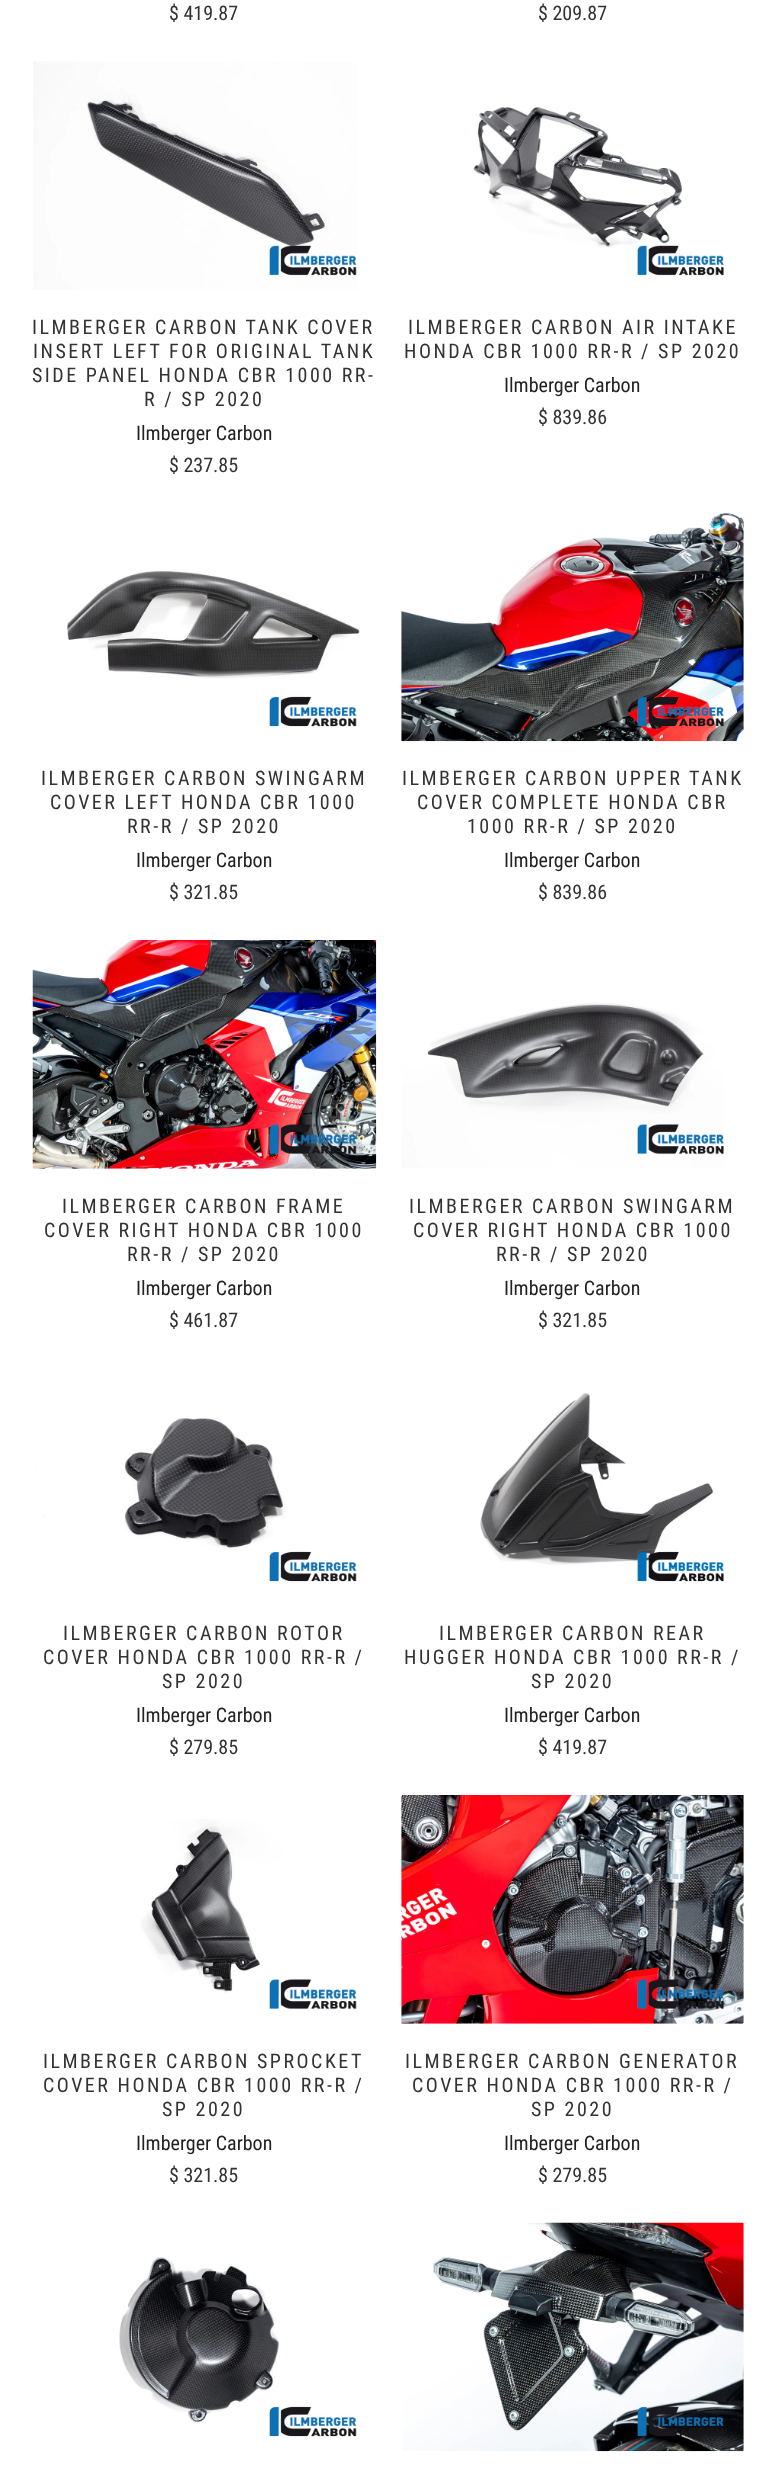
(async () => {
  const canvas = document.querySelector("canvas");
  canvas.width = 776;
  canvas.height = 2472;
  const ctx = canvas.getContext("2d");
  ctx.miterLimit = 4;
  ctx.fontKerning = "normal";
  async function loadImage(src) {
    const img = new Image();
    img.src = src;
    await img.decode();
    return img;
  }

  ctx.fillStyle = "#ffffff";
  ctx.fillRect(0, 0, 776, 2472);
  ctx.drawImage(await loadImage("img/1.png"), 33, 61, 324, 229);
  ctx.drawImage(await loadImage("img/2.png"), 473, 107, 251, 169);
  ctx.drawImage(await loadImage("img/3.png"), 67, 571, 293, 156);
  ctx.drawImage(await loadImage("img/4.png"), 401, 513, 343, 229);
  ctx.drawImage(await loadImage("img/5.png"), 32, 940, 345, 229);
  ctx.drawImage(await loadImage("img/6.png"), 402, 1003, 322, 165);
  ctx.drawImage(await loadImage("img/7.png"), 35, 1418, 322, 164);
  ctx.drawImage(await loadImage("img/8.png"), 480, 1392, 244, 190);
  ctx.drawImage(await loadImage("img/9.png"), 140, 1819, 217, 191);
  ctx.drawImage(await loadImage("img/10.png"), 401, 1795, 343, 229);
  ctx.drawImage(await loadImage("img/11.png"), 119, 2257, 238, 180);
  ctx.drawImage(await loadImage("img/12.png"), 402, 2222, 342, 230);
  ctx.font = "20px Roboto Condensed";
  ctx.fillStyle = "#333333";
  ctx.fillText("$ 419.87", 169, 20);
  ctx.fillText("$ 209.87", 538, 20);
  ctx.letterSpacing = "2.5px";
  for (const [text, x, y] of [
    ["ILMBERGER CARBON TANK COVER", 32, 334],
    ["INSERT LEFT FOR ORIGINAL TANK", 33, 358],
    ["SIDE PANEL HONDA CBR 1000 RR-", 32, 382],
    ["R / SP 2020", 144, 406],
  ]) {
    ctx.fillText(text, x, y);
  }
  ctx.letterSpacing = "0px";
  ctx.fillStyle = "#222222";
  ctx.fillText("Ilmberger Carbon", 136, 440);
  ctx.fillStyle = "#333333";
  ctx.fillText("$ 237.85", 169, 472);
  ctx.letterSpacing = "2.5px";
  ctx.fillText("ILMBERGER CARBON AIR INTAKE", 408, 334);
  ctx.fillText("HONDA CBR 1000 RR-R / SP 2020", 404, 358);
  ctx.letterSpacing = "0px";
  ctx.fillStyle = "#222222";
  ctx.fillText("Ilmberger Carbon", 504, 392);
  ctx.fillStyle = "#333333";
  ctx.fillText("$ 839.86", 538, 424);
  ctx.letterSpacing = "2.5px";
  for (const [text, x, y] of [
    ["ILMBERGER CARBON SWINGARM", 41, 785],
    ["COVER LEFT HONDA CBR 1000", 50, 809],
    ["RR-R / SP 2020", 127, 833],
  ]) {
    ctx.fillText(text, x, y);
  }
  ctx.letterSpacing = "0px";
  ctx.fillStyle = "#222222";
  ctx.fillText("Ilmberger Carbon", 136, 867);
  ctx.fillStyle = "#333333";
  ctx.fillText("$ 321.85", 169, 899);
  ctx.letterSpacing = "2.5px";
  for (const [text, x, y] of [
    ["ILMBERGER CARBON UPPER TANK", 402, 785],
    ["COVER COMPLETE HONDA CBR", 417, 809],
    ["1000 RR-R / SP 2020", 467, 833],
  ]) {
    ctx.fillText(text, x, y);
  }
  ctx.letterSpacing = "0px";
  ctx.fillStyle = "#222222";
  ctx.fillText("Ilmberger Carbon", 504, 867);
  ctx.fillStyle = "#333333";
  ctx.fillText("$ 839.86", 538, 899);
  ctx.letterSpacing = "2.5px";
  for (const [text, x, y] of [
    ["ILMBERGER CARBON FRAME", 62, 1213],
    ["COVER RIGHT HONDA CBR 1000", 44, 1237],
    ["RR-R / SP 2020", 127, 1261],
  ]) {
    ctx.fillText(text, x, y);
  }
  ctx.letterSpacing = "0px";
  ctx.fillStyle = "#222222";
  ctx.fillText("Ilmberger Carbon", 136, 1295);
  ctx.fillStyle = "#333333";
  ctx.fillText("$ 461.87", 169, 1327);
  ctx.letterSpacing = "2.5px";
  for (const [text, x, y] of [
    ["ILMBERGER CARBON SWINGARM", 409, 1213],
    ["COVER RIGHT HONDA CBR 1000", 413, 1237],
    ["RR-R / SP 2020", 496, 1261],
  ]) {
    ctx.fillText(text, x, y);
  }
  ctx.letterSpacing = "0px";
  ctx.fillStyle = "#222222";
  ctx.fillText("Ilmberger Carbon", 504, 1295);
  ctx.fillStyle = "#333333";
  ctx.fillText("$ 321.85", 538, 1327);
  ctx.letterSpacing = "2.5px";
  for (const [text, x, y] of [
    ["ILMBERGER CARBON ROTOR", 63, 1640],
    ["COVER HONDA CBR 1000 RR-R /", 43, 1664],
    ["SP 2020", 162, 1688],
  ]) {
    ctx.fillText(text, x, y);
  }
  ctx.letterSpacing = "0px";
  ctx.fillStyle = "#222222";
  ctx.fillText("Ilmberger Carbon", 136, 1722);
  ctx.fillStyle = "#333333";
  ctx.fillText("$ 279.85", 169, 1754);
  ctx.letterSpacing = "2.5px";
  for (const [text, x, y] of [
    ["ILMBERGER CARBON REAR", 439, 1640],
    ["HUGGER HONDA CBR 1000 RR-R /", 404, 1664],
    ["SP 2020", 531, 1688],
  ]) {
    ctx.fillText(text, x, y);
  }
  ctx.letterSpacing = "0px";
  ctx.fillStyle = "#222222";
  ctx.fillText("Ilmberger Carbon", 504, 1722);
  ctx.fillStyle = "#333333";
  ctx.fillText("$ 419.87", 538, 1754);
  ctx.letterSpacing = "2.5px";
  for (const [text, x, y] of [
    ["ILMBERGER CARBON SPROCKET", 43, 2068],
    ["COVER HONDA CBR 1000 RR-R /", 43, 2092],
    ["SP 2020", 162, 2116],
  ]) {
    ctx.fillText(text, x, y);
  }
  ctx.letterSpacing = "0px";
  ctx.fillStyle = "#222222";
  ctx.fillText("Ilmberger Carbon", 136, 2150);
  ctx.fillStyle = "#333333";
  ctx.fillText("$ 321.85", 169, 2182);
  ctx.letterSpacing = "2.5px";
  for (const [text, x, y] of [
    ["ILMBERGER CARBON GENERATOR", 405, 2068],
    ["COVER HONDA CBR 1000 RR-R /", 412, 2092],
    ["SP 2020", 531, 2116],
  ]) {
    ctx.fillText(text, x, y);
  }
  ctx.letterSpacing = "0px";
  ctx.fillStyle = "#222222";
  ctx.fillText("Ilmberger Carbon", 504, 2150);
  ctx.fillStyle = "#333333";
  ctx.fillText("$ 279.85", 538, 2182);
})();
